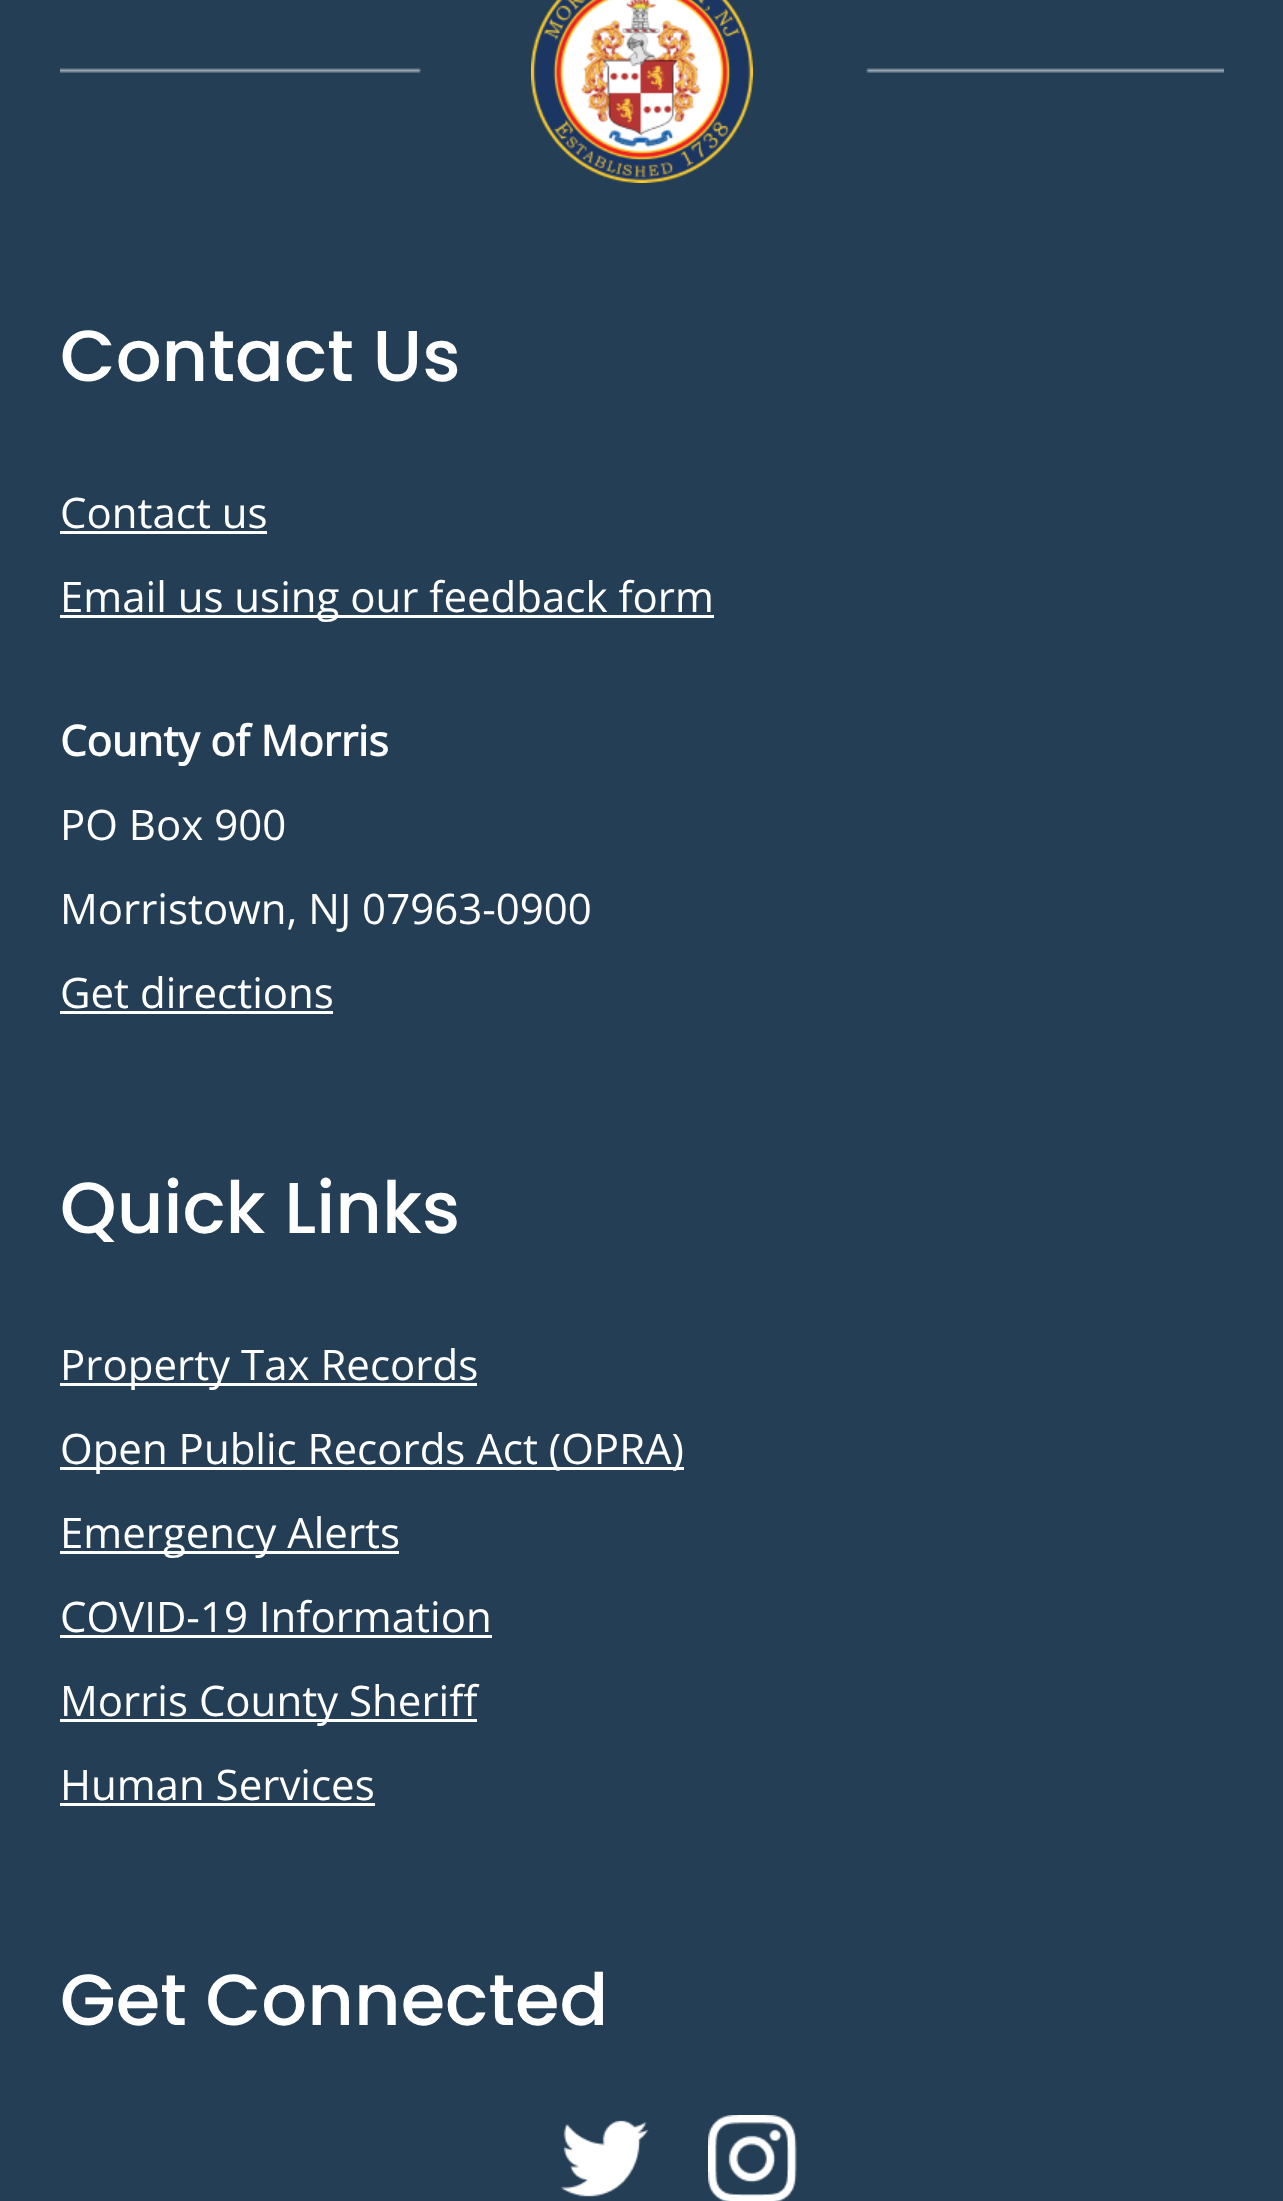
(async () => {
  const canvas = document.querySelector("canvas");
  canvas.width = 1283;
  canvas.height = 2201;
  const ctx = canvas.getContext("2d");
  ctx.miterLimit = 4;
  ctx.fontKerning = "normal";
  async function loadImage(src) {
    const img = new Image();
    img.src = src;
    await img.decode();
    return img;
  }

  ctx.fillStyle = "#243e55";
  ctx.fillRect(0, 0, 1283, 2201);
  ctx.drawImage(await loadImage("img/1.png"), 60, 68, 1164, 5);
  ctx.drawImage(await loadImage("img/2.png"), 531, 0, 222, 183);
  for (const [x, y, w, h, color] of [
    [60, 531, 207, 3, "#ffffff"],
    [60, 615, 654, 3, "#ffffff"],
    [60, 1011, 273, 3, "#ffffff"],
    [60, 1383, 417, 3, "#ffffff"],
    [60, 1467, 624, 3, "#ffffff"],
    [60, 1551, 339, 3, "#ffffff"],
    [60, 1635, 432, 3, "#ffffff"],
    [60, 1719, 417, 3, "#ffffff"],
    [60, 1803, 315, 3, "#ffffff"],
  ]) {
    ctx.fillStyle = color;
    ctx.fillRect(x, y, w, h);
  }
  ctx.drawImage(await loadImage("img/3.png"), 561, 2120, 88, 77);
  ctx.drawImage(await loadImage("img/4.png"), 708, 2115, 89, 86);
  ctx.font = "500 72px Poppins";
  ctx.fillText("Contact Us", 60, 381);
  ctx.font = "42px Open Sans";
  ctx.fillText("Contact us", 60, 528);
  ctx.fillText("Email us using our feedback form", 60, 612);
  ctx.font = "bold 42px Open Sans";
  ctx.fillText("County of Morris", 60, 756);
  ctx.font = "42px Open Sans";
  for (const [text, x, y] of [
    ["PO Box 900", 60, 840],
    ["Morristown, NJ 07963-0900", 60, 924],
    ["Get directions", 60, 1008],
  ]) {
    ctx.fillText(text, x, y);
  }
  ctx.font = "500 72px Poppins";
  ctx.fillText("Quick Links", 60, 1233);
  ctx.font = "42px Open Sans";
  for (const [text, x, y] of [
    ["Property Tax Records", 60, 1380],
    ["Open Public Records Act (OPRA)", 60, 1464],
    ["Emergency Alerts", 60, 1548],
    ["COVID-19 Information", 60, 1632],
    ["Morris County Sheriff", 60, 1716],
    ["Human Services", 60, 1800],
  ]) {
    ctx.fillText(text, x, y);
  }
  ctx.font = "500 72px Poppins";
  ctx.fillText("Get Connected", 60, 2025);
})();
